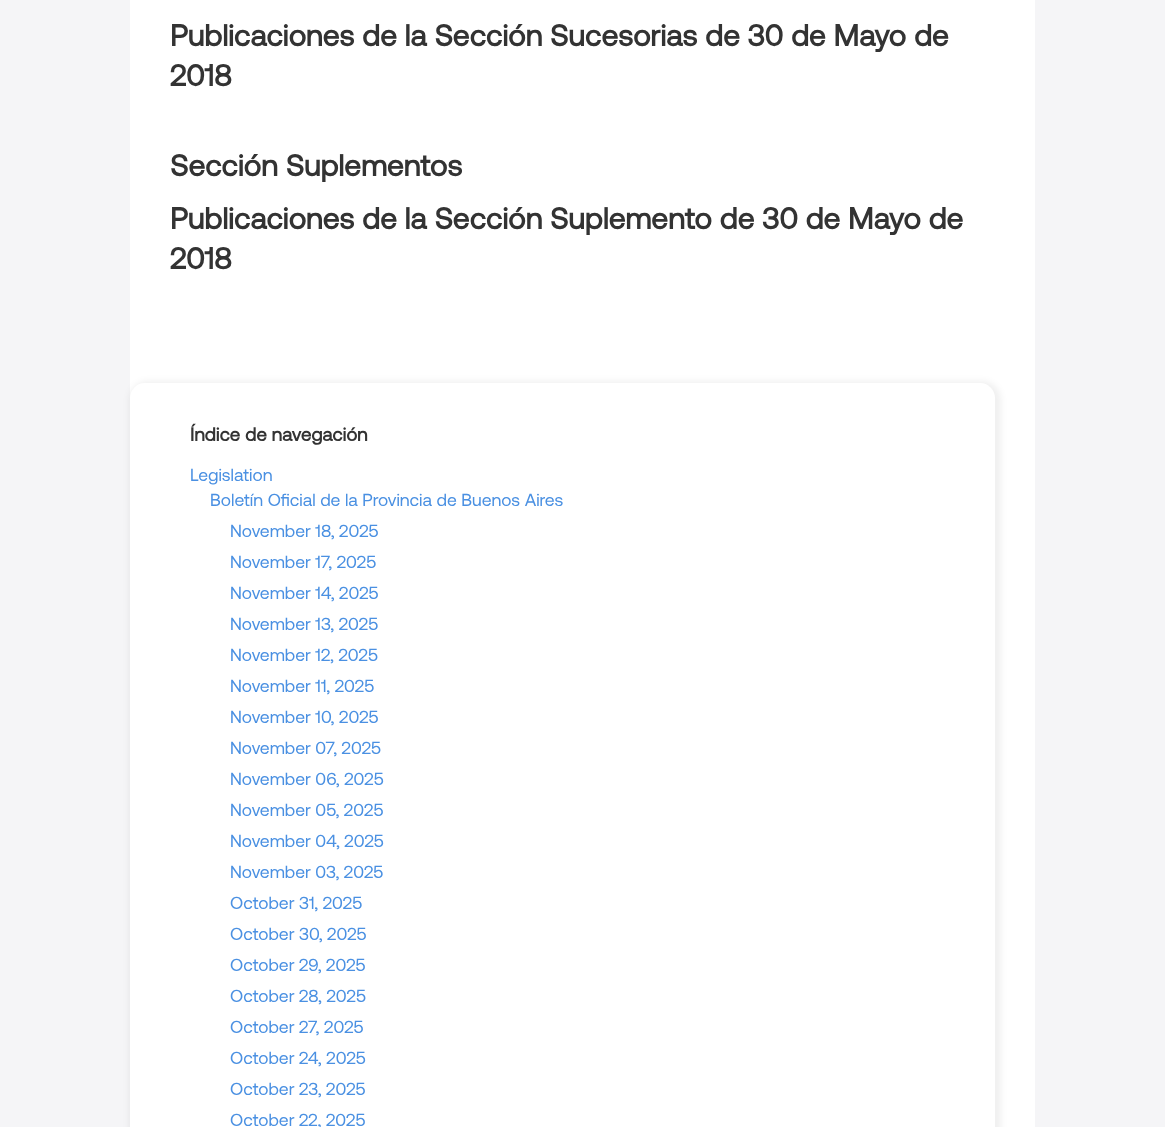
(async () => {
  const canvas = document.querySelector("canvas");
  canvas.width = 1165;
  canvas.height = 1127;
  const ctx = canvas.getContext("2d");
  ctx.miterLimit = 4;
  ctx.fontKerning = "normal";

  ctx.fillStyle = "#f5f5f7";
  ctx.fillRect(0, 0, 1165, 1127);
  ctx.fillStyle = "#ffffff";
  ctx.fillRect(130, 0, 905, 1127);
  ctx.fillStyle = "rgba(0, 0, 0, 0.06)";
  ctx.filter = "blur(3px)";
  ctx.beginPath();
  ctx.roundRect(129, 381, 872, 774, 19);
  ctx.fill();
  ctx.filter = "none";
  ctx.fillStyle = "#ffffff";
  ctx.beginPath();
  ctx.roundRect(130, 383, 865, 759, 15);
  ctx.fill();
  ctx.font = "bold 30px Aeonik";
  ctx.fillStyle = "#333333";
  for (const [text, x, y] of [
    ["Publicaciones de la Sección Sucesorias de 30 de Mayo de", 170, 46],
    ["2018", 170, 86],
    ["Sección Suplementos", 170, 176],
    ["Publicaciones de la Sección Suplemento de 30 de Mayo de", 170, 229],
    ["2018", 170, 269],
  ]) {
    ctx.fillText(text, x, y);
  }
  ctx.font = "bold 18.75px Aeonik";
  ctx.fillText("Índice de navegación", 190, 441);
  ctx.font = "17.5px Aeonik";
  ctx.fillStyle = "#4a90e2";
  for (const [text, x, y] of [
    ["Legislation", 190, 481],
    ["Boletín Oficial de la Provincia de Buenos Aires", 210, 506],
    ["November 18, 2025", 230, 537],
    ["November 17, 2025", 230, 568],
    ["November 14, 2025", 230, 599],
    ["November 13, 2025", 230, 630],
    ["November 12, 2025", 230, 661],
    ["November 11, 2025", 230, 692],
    ["November 10, 2025", 230, 723],
    ["November 07, 2025", 230, 754],
    ["November 06, 2025", 230, 785],
    ["November 05, 2025", 230, 816],
    ["November 04, 2025", 230, 847],
    ["November 03, 2025", 230, 878],
    ["October 31, 2025", 230, 909],
    ["October 30, 2025", 230, 940],
    ["October 29, 2025", 230, 971],
    ["October 28, 2025", 230, 1002],
    ["October 27, 2025", 230, 1033],
    ["October 24, 2025", 230, 1064],
    ["October 23, 2025", 230, 1095],
    ["October 22, 2025", 230, 1126],
  ]) {
    ctx.fillText(text, x, y);
  }
})();
